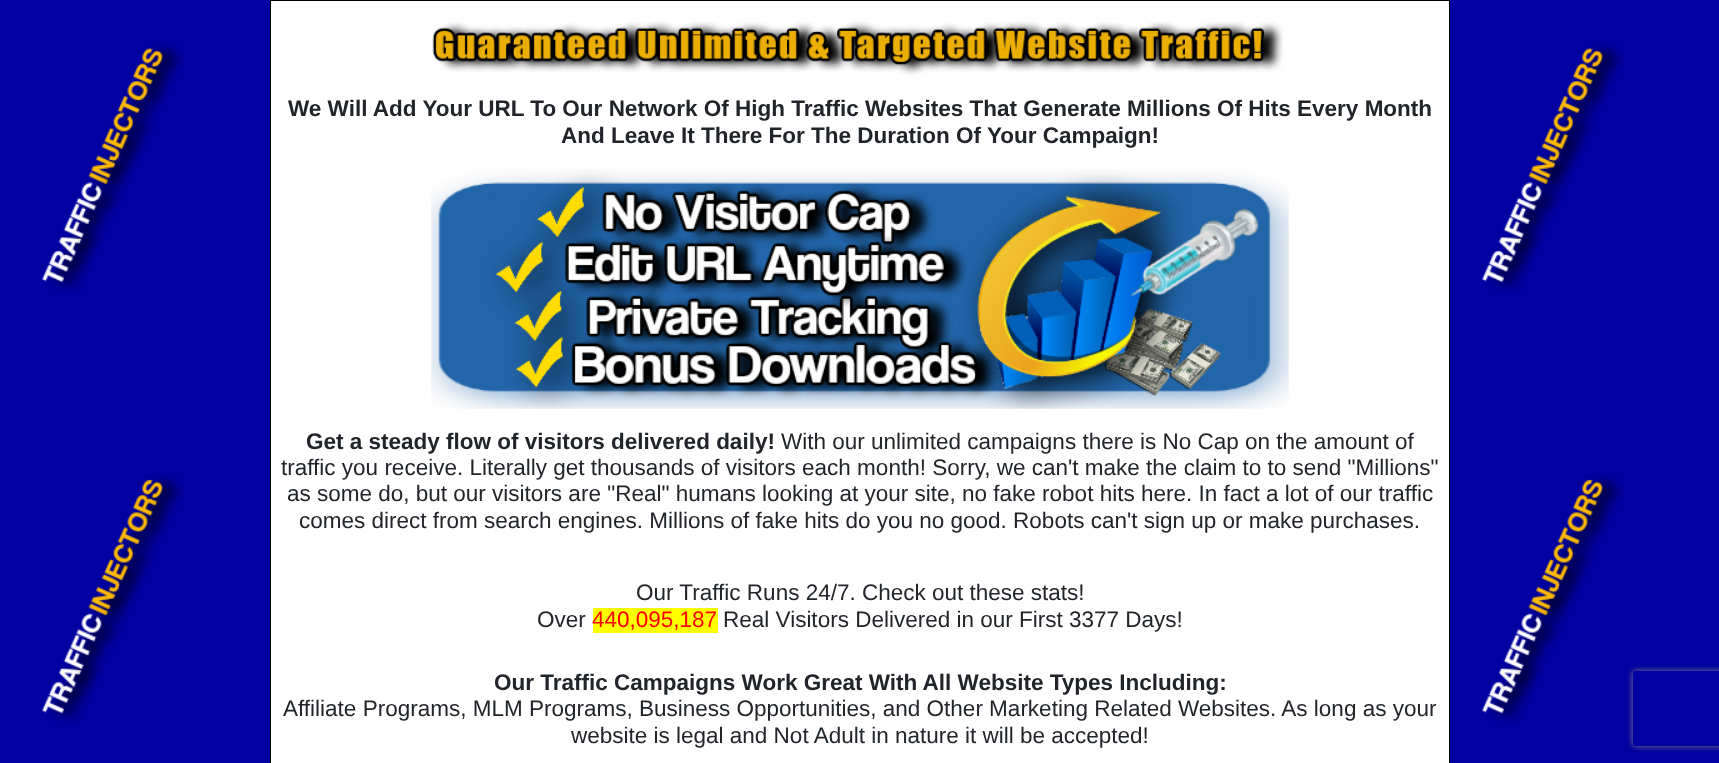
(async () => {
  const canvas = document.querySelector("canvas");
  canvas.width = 1719;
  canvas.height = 763;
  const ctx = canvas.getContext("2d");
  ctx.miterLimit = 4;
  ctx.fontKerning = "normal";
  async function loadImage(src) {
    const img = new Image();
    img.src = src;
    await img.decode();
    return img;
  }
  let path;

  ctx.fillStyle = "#ffffff";
  ctx.fillRect(0, 0, 1719, 763);
  ctx.drawImage(await loadImage("img/1.png"), 0, 0, 1719, 763);
  for (const [x, y, w, h, color] of [
    [271, 1, 1178, 762, "#ffffff"],
    [270, 0, 1180, 1, "#000000"],
    [1449, 0, 1, 763, "#000000"],
    [270, 0, 1, 763, "#000000"],
  ]) {
    ctx.fillStyle = color;
    ctx.fillRect(x, y, w, h);
  }
  ctx.drawImage(await loadImage("img/2.png"), 432, 21, 852, 54);
  ctx.drawImage(await loadImage("img/3.png"), 431, 169, 858, 240);
  ctx.fillStyle = "#ffff00";
  ctx.fillRect(593, 608, 125, 25);
  ctx.save();
  path = new Path2D("M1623 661H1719V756H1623ZM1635.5 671H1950.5C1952 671 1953 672 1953 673.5V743.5C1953 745 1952 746 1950.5 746H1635.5C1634 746 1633 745 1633 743.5V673.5C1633 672 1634 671 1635.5 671Z");
  ctx.clip(path, "evenodd");
  ctx.fillStyle = "#808080";
  ctx.filter = "blur(3px)";
  ctx.beginPath();
  ctx.roundRect(1633, 671, 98, 75, 2.5);
  ctx.fill();
  ctx.filter = "none";
  ctx.restore();
  ctx.font = "bold 22.5px Liberation Sans";
  ctx.fillStyle = "#212529";
  for (const [text, x, y] of [
    ["We Will Add Your URL To Our Network Of High Traffic Websites That Generate Millions Of Hits Every Month", 288, 116],
    ["And Leave It There For The Duration Of Your Campaign!", 561, 143],
    ["Get a steady flow of visitors delivered daily!", 306, 449],
  ]) {
    ctx.fillText(text, x, y);
  }
  ctx.font = "22.5px Liberation Sans";
  for (const [text, x, y] of [
    ["With our unlimited campaigns there is No Cap on the amount of", 781, 449],
    ["traffic you receive. Literally get thousands of visitors each month! Sorry, we can't make the claim to to send \"Millions\"", 281, 475],
    ["as some do, but our visitors are \"Real\" humans looking at your site, no fake robot hits here. In fact a lot of our traffic", 287, 501],
    ["comes direct from search engines. Millions of fake hits do you no good. Robots can't sign up or make purchases.", 299, 528],
    ["Our Traffic Runs 24/7. Check out these stats!", 636, 600],
    ["Over", 537, 627],
  ]) {
    ctx.fillText(text, x, y);
  }
  ctx.fillStyle = "#ff0000";
  ctx.fillText("440,095,187", 592, 627);
  ctx.fillStyle = "#212529";
  ctx.fillText("Real Visitors Delivered in our First 3377 Days!", 723, 627);
  ctx.font = "bold 22.5px Liberation Sans";
  ctx.fillText("Our Traffic Campaigns Work Great With All Website Types Including:", 494, 690);
  ctx.font = "22.5px Liberation Sans";
  ctx.fillText("Affiliate Programs, MLM Programs, Business Opportunities, and Other Marketing Related Websites. As long as your", 283, 716);
  ctx.fillText("website is legal and Not Adult in nature it will be accepted!", 571, 743);
})();
